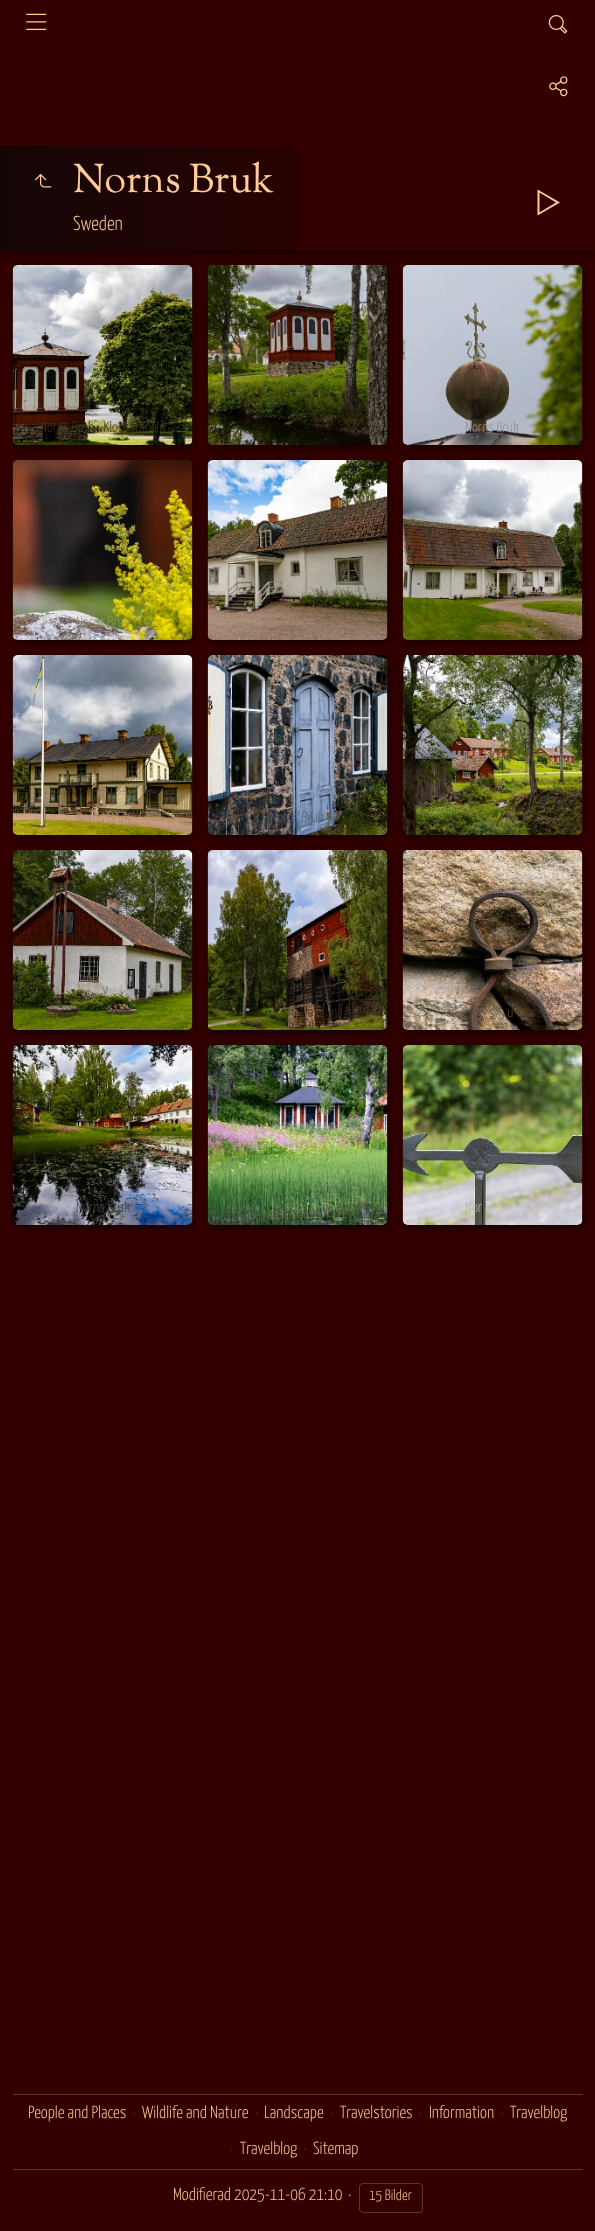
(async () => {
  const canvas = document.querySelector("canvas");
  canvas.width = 595;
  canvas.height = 2231;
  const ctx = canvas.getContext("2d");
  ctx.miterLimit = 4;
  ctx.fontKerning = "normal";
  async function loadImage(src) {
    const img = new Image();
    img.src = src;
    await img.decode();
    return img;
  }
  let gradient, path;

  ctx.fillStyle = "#330000";
  ctx.fillRect(0, 0, 595, 2231);
  ctx.fillStyle = "rgba(0, 0, 0, 0.53)";
  ctx.filter = "blur(4px)";
  ctx.beginPath();
  ctx.rect(1, 54, 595, 200);
  ctx.fill();
  ctx.filter = "none";
  ctx.fillStyle = "#330000";
  ctx.fillRect(1, 49, 594, 2);
  ctx.drawImage(await loadImage("img/1.png"), 26, 13, 21, 17);
  ctx.drawImage(await loadImage("img/2.png"), 548, 15, 20, 19);
  ctx.fillRect(0, 51, 595, 200);
  gradient = ctx.createLinearGradient(0, 199, 299, 199);
  gradient.addColorStop(0, "#150606");
  gradient.addColorStop(0.6, "#200404");
  gradient.addColorStop(1, "#2a0202");
  ctx.fillStyle = gradient;
  ctx.beginPath();
  ctx.roundRect(0, 146, 299, 105, [0, 8, 0, 0]);
  ctx.fill();
  ctx.drawImage(await loadImage("img/3.png"), 34, 173, 18, 15);
  ctx.drawImage(await loadImage("img/4.png"), 549, 76, 19, 21);
  ctx.fillStyle = "#ffcc99";
  path = new Path2D("M539.5 192.5L556 202.5L539.5 212.5ZM537.5 189.5V215.5L560 202.5Z");
  ctx.fill(path);
  ctx.fillStyle = "rgba(0, 0, 0, 0.53)";
  ctx.filter = "blur(4px)";
  ctx.beginPath();
  ctx.roundRect(14, 268, 180, 180, 5);
  ctx.fill();
  ctx.filter = "none";
  ctx.fillStyle = "#330000";
  ctx.beginPath();
  ctx.roundRect(13, 265, 180, 180, 5);
  ctx.fill();
  ctx.drawImage(await loadImage("img/5.png"), 12, 265, 181, 180);
  ctx.fillStyle = "rgba(0, 0, 0, 0.53)";
  ctx.filter = "blur(4px)";
  ctx.beginPath();
  ctx.roundRect(209, 268, 180, 180, 5);
  ctx.fill();
  ctx.filter = "none";
  ctx.fillStyle = "#330000";
  ctx.beginPath();
  ctx.roundRect(208, 265, 180, 180, 5);
  ctx.fill();
  ctx.drawImage(await loadImage("img/6.png"), 207, 265, 181, 180);
  ctx.fillStyle = "rgba(0, 0, 0, 0.53)";
  ctx.filter = "blur(4px)";
  ctx.beginPath();
  ctx.roundRect(404, 268, 180, 180, 5);
  ctx.fill();
  ctx.filter = "none";
  ctx.fillStyle = "#330000";
  ctx.beginPath();
  ctx.roundRect(403, 265, 180, 180, 5);
  ctx.fill();
  ctx.drawImage(await loadImage("img/7.png"), 402, 265, 181, 180);
  ctx.fillStyle = "rgba(0, 0, 0, 0.53)";
  ctx.filter = "blur(4px)";
  ctx.beginPath();
  ctx.roundRect(14, 463, 180, 180, 5);
  ctx.fill();
  ctx.filter = "none";
  ctx.fillStyle = "#330000";
  ctx.beginPath();
  ctx.roundRect(13, 460, 180, 180, 5);
  ctx.fill();
  ctx.drawImage(await loadImage("img/8.png"), 12, 460, 181, 180);
  ctx.fillStyle = "rgba(0, 0, 0, 0.53)";
  ctx.filter = "blur(4px)";
  ctx.beginPath();
  ctx.roundRect(209, 463, 180, 180, 5);
  ctx.fill();
  ctx.filter = "none";
  ctx.fillStyle = "#330000";
  ctx.beginPath();
  ctx.roundRect(208, 460, 180, 180, 5);
  ctx.fill();
  ctx.drawImage(await loadImage("img/9.png"), 207, 460, 181, 180);
  ctx.fillStyle = "rgba(0, 0, 0, 0.53)";
  ctx.filter = "blur(4px)";
  ctx.beginPath();
  ctx.roundRect(404, 463, 180, 180, 5);
  ctx.fill();
  ctx.filter = "none";
  ctx.fillStyle = "#330000";
  ctx.beginPath();
  ctx.roundRect(403, 460, 180, 180, 5);
  ctx.fill();
  ctx.drawImage(await loadImage("img/10.png"), 402, 460, 181, 180);
  ctx.fillStyle = "rgba(0, 0, 0, 0.53)";
  ctx.filter = "blur(4px)";
  ctx.beginPath();
  ctx.roundRect(14, 658, 180, 180, 5);
  ctx.fill();
  ctx.filter = "none";
  ctx.fillStyle = "#330000";
  ctx.beginPath();
  ctx.roundRect(13, 655, 180, 180, 5);
  ctx.fill();
  ctx.drawImage(await loadImage("img/11.png"), 12, 655, 181, 180);
  ctx.fillStyle = "rgba(0, 0, 0, 0.53)";
  ctx.filter = "blur(4px)";
  ctx.beginPath();
  ctx.roundRect(209, 658, 180, 180, 5);
  ctx.fill();
  ctx.filter = "none";
  ctx.fillStyle = "#330000";
  ctx.beginPath();
  ctx.roundRect(208, 655, 180, 180, 5);
  ctx.fill();
  ctx.drawImage(await loadImage("img/12.png"), 207, 655, 181, 180);
  ctx.fillStyle = "rgba(0, 0, 0, 0.53)";
  ctx.filter = "blur(4px)";
  ctx.beginPath();
  ctx.roundRect(404, 658, 180, 180, 5);
  ctx.fill();
  ctx.filter = "none";
  ctx.fillStyle = "#330000";
  ctx.beginPath();
  ctx.roundRect(403, 655, 180, 180, 5);
  ctx.fill();
  ctx.drawImage(await loadImage("img/13.png"), 402, 655, 181, 180);
  ctx.fillStyle = "rgba(0, 0, 0, 0.53)";
  ctx.filter = "blur(4px)";
  ctx.beginPath();
  ctx.roundRect(14, 853, 180, 180, 5);
  ctx.fill();
  ctx.filter = "none";
  ctx.fillStyle = "#330000";
  ctx.beginPath();
  ctx.roundRect(13, 850, 180, 180, 5);
  ctx.fill();
  ctx.drawImage(await loadImage("img/14.png"), 12, 850, 181, 180);
  ctx.fillStyle = "rgba(0, 0, 0, 0.53)";
  ctx.filter = "blur(4px)";
  ctx.beginPath();
  ctx.roundRect(209, 853, 180, 180, 5);
  ctx.fill();
  ctx.filter = "none";
  ctx.fillStyle = "#330000";
  ctx.beginPath();
  ctx.roundRect(208, 850, 180, 180, 5);
  ctx.fill();
  ctx.drawImage(await loadImage("img/15.png"), 207, 850, 181, 180);
  ctx.fillStyle = "rgba(0, 0, 0, 0.53)";
  ctx.filter = "blur(4px)";
  ctx.beginPath();
  ctx.roundRect(404, 853, 180, 180, 5);
  ctx.fill();
  ctx.filter = "none";
  ctx.fillStyle = "#330000";
  ctx.beginPath();
  ctx.roundRect(403, 850, 180, 180, 5);
  ctx.fill();
  ctx.drawImage(await loadImage("img/16.png"), 402, 850, 181, 180);
  ctx.fillStyle = "rgba(0, 0, 0, 0.53)";
  ctx.filter = "blur(4px)";
  ctx.beginPath();
  ctx.roundRect(14, 1048, 180, 180, 5);
  ctx.fill();
  ctx.filter = "none";
  ctx.fillStyle = "#330000";
  ctx.beginPath();
  ctx.roundRect(13, 1045, 180, 180, 5);
  ctx.fill();
  ctx.drawImage(await loadImage("img/17.png"), 12, 1045, 181, 180);
  ctx.fillStyle = "rgba(0, 0, 0, 0.53)";
  ctx.filter = "blur(4px)";
  ctx.beginPath();
  ctx.roundRect(209, 1048, 180, 180, 5);
  ctx.fill();
  ctx.filter = "none";
  ctx.fillStyle = "#330000";
  ctx.beginPath();
  ctx.roundRect(208, 1045, 180, 180, 5);
  ctx.fill();
  ctx.drawImage(await loadImage("img/18.png"), 207, 1045, 181, 180);
  ctx.fillStyle = "rgba(0, 0, 0, 0.53)";
  ctx.filter = "blur(4px)";
  ctx.beginPath();
  ctx.roundRect(404, 1048, 180, 180, 5);
  ctx.fill();
  ctx.filter = "none";
  ctx.fillStyle = "#330000";
  ctx.beginPath();
  ctx.roundRect(403, 1045, 180, 180, 5);
  ctx.fill();
  ctx.drawImage(await loadImage("img/19.png"), 402, 1045, 181, 180);
  ctx.fillStyle = "#5c3333";
  ctx.fillRect(13, 2094, 570, 1);
  ctx.fillRect(13, 2169, 570, 1);
  ctx.beginPath();
  ctx.roundRect(359.5, 2183.5, 63, 29, 3.5);
  ctx.strokeStyle = "#663326";
  ctx.stroke();
  ctx.font = "40px Sorts Mill Goudy";
  ctx.fillStyle = "#ffcc99";
  ctx.fillText("Norns Bruk", 73, 192);
  ctx.font = "300 20px Yanone Kaffeesatz";
  ctx.fillText("Sweden", 73, 230);
  ctx.font = "300 15px Yanone Kaffeesatz";
  ctx.fillStyle = "#3d381d";
  ctx.fillText("Norns Bruk - Klockstapeln", 40, 432);
  ctx.fillStyle = "#8e8e93";
  ctx.fillText("Norns Bruk", 465, 432);
  ctx.fillStyle = "#959963";
  ctx.fillText("Norns Bruk", 76, 627);
  ctx.fillStyle = "#a88664";
  ctx.fillText("Norns Bruk", 76, 822);
  ctx.fillStyle = "#58647b";
  ctx.fillText("Norns Bruk", 270, 822);
  ctx.fillStyle = "#39321a";
  ctx.fillText("- Ma", 293, 1017);
  ctx.fillText("na", 331, 1017);
  ctx.fillStyle = "#615140";
  ctx.fillText("s", 489, 1017);
  ctx.fillText("u", 507, 1017);
  ctx.fillStyle = "#43454b";
  ctx.fillText("Norns Bruk", 76, 1212);
  ctx.fillStyle = "#b5b4ac";
  ctx.fillText("Nor", 465, 1212);
  ctx.font = "300 17.5px Yanone Kaffeesatz";
  ctx.fillStyle = "#ffcc99";
  ctx.fillText("People and Places", 28, 2118);
  ctx.fillStyle = "#5c3333";
  ctx.fillText("·", 132, 2118);
  ctx.fillStyle = "#ffcc99";
  ctx.fillText("Wildlife and Nature", 142, 2118);
  ctx.fillStyle = "#5c3333";
  ctx.fillText("·", 255, 2118);
  ctx.fillStyle = "#ffcc99";
  ctx.fillText("Landscape", 264, 2118);
  ctx.fillStyle = "#5c3333";
  ctx.fillText("·", 330, 2118);
  ctx.fillStyle = "#ffcc99";
  ctx.fillText("Travelstories", 340, 2118);
  ctx.fillStyle = "#5c3333";
  ctx.fillText("·", 419, 2118);
  ctx.fillStyle = "#ffcc99";
  ctx.fillText("Information", 429, 2118);
  ctx.fillStyle = "#5c3333";
  ctx.fillText("·", 500, 2118);
  ctx.fillStyle = "#ffcc99";
  ctx.fillText("Travelblog", 510, 2118);
  ctx.fillStyle = "#5c3333";
  ctx.fillText("·", 230, 2154);
  ctx.fillStyle = "#ffcc99";
  ctx.fillText("Travelblog", 240, 2154);
  ctx.fillStyle = "#5c3333";
  ctx.fillText("·", 303, 2154);
  ctx.fillStyle = "#ffcc99";
  for (const [text, x, y] of [
    ["Sitemap", 313, 2154],
    ["Modifierad 2025-11-06 21:10", 173, 2200],
    ["·", 348, 2200],
  ]) {
    ctx.fillText(text, x, y);
  }
  ctx.font = "300 15px Yanone Kaffeesatz";
  ctx.fillText("15 Bilder", 369, 2200);
})();
